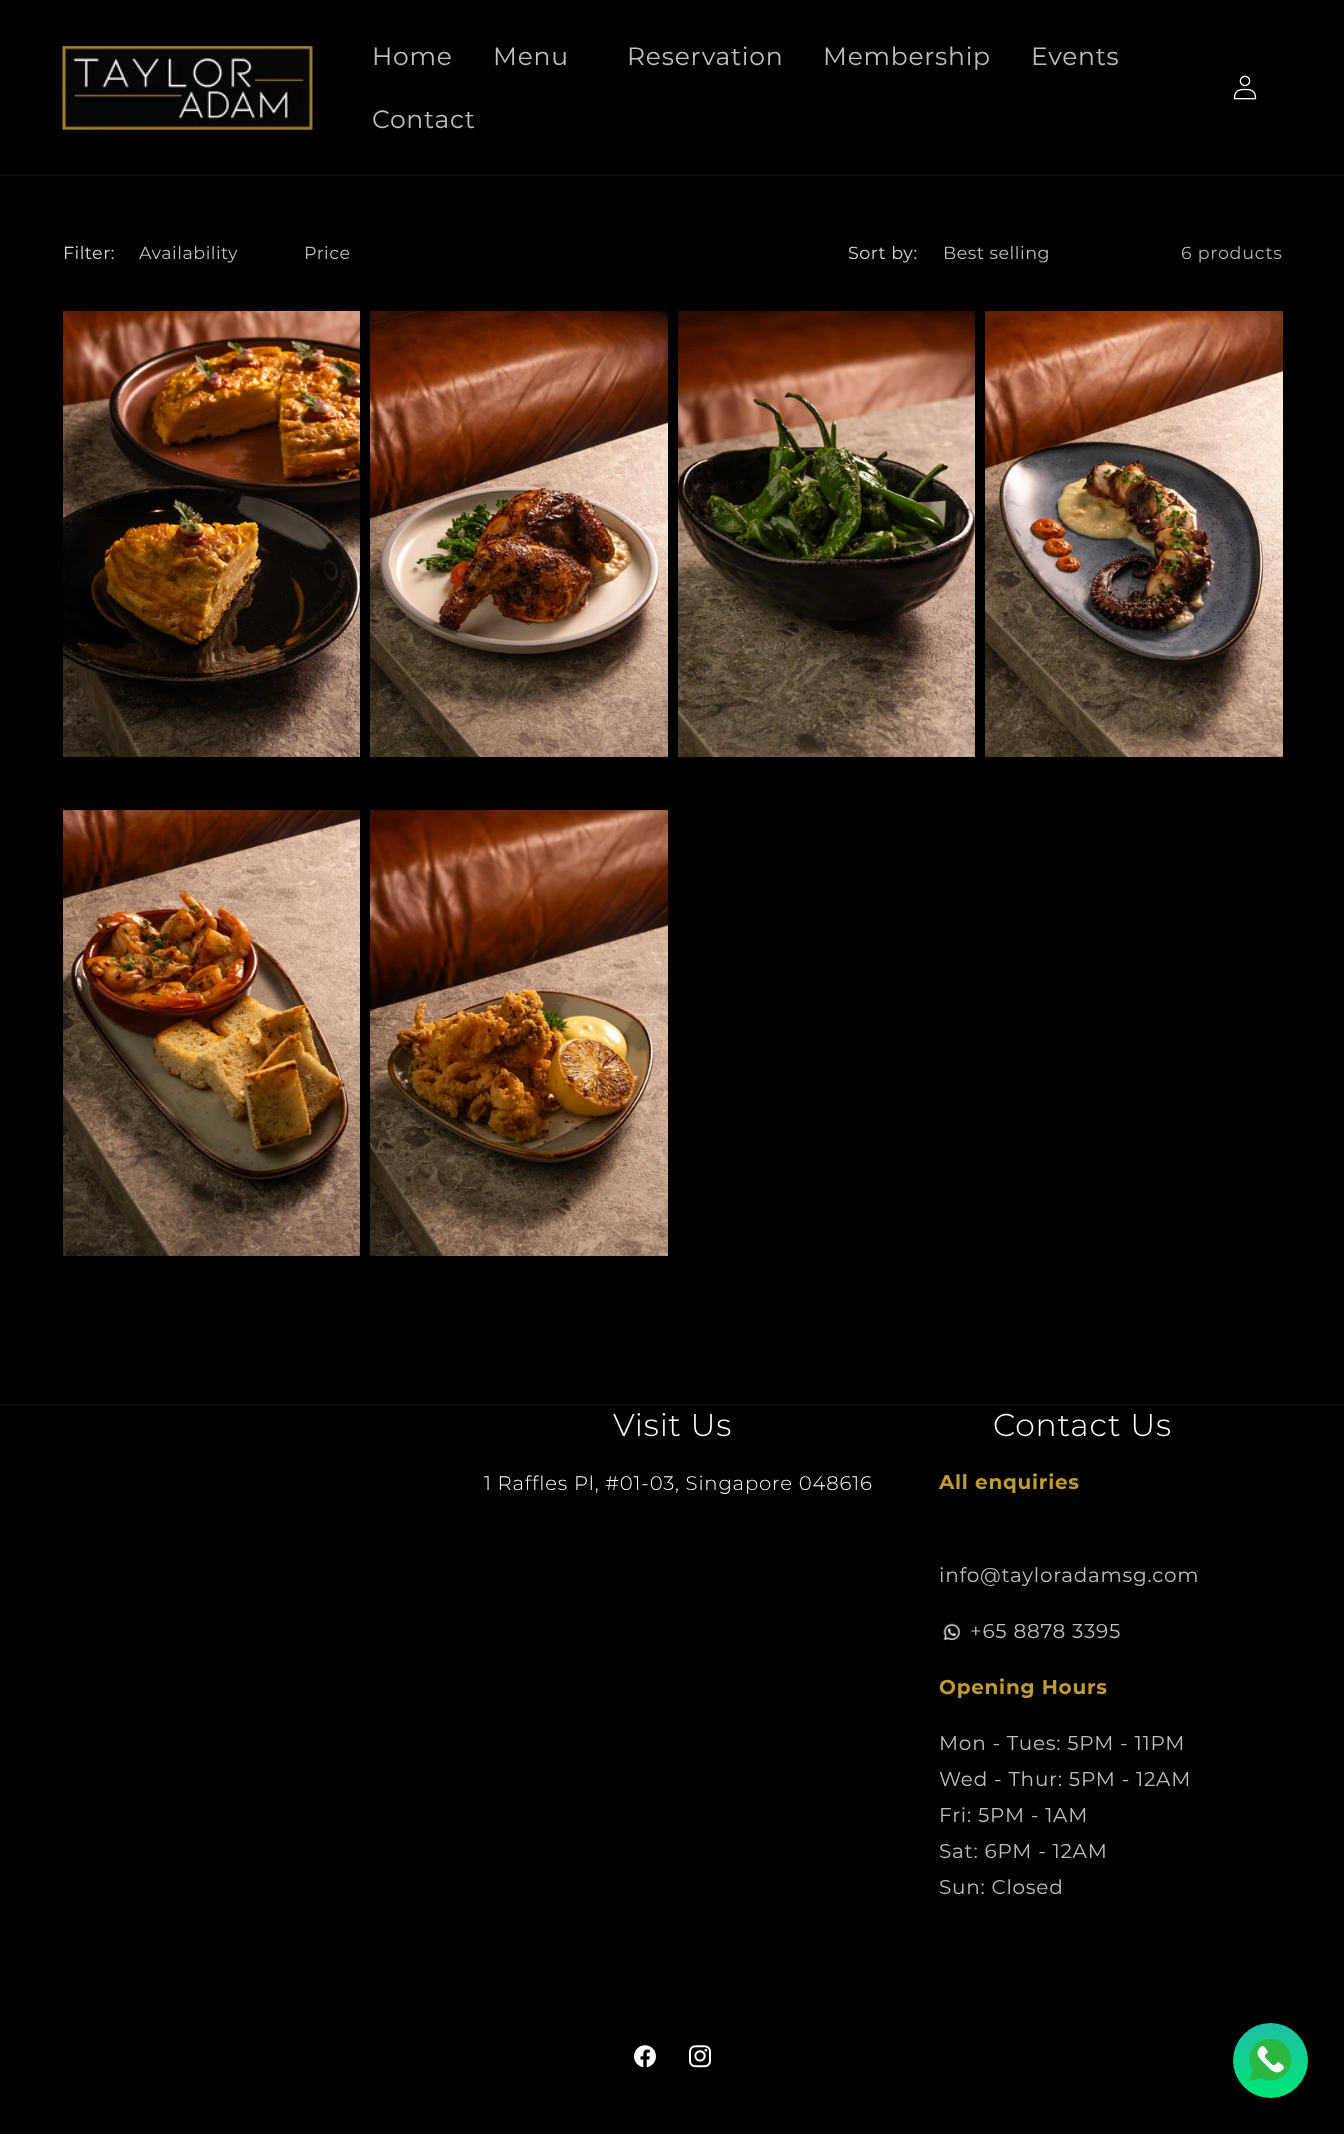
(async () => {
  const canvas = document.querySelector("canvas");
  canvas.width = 1344;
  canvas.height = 2134;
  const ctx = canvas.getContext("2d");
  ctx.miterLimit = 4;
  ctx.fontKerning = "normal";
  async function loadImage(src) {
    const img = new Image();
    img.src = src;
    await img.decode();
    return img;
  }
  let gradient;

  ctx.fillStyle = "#000000";
  ctx.fillRect(0, 0, 1344, 2134);
  ctx.fillStyle = "#141414";
  ctx.fillRect(0, 175, 1344, 1);
  ctx.drawImage(await loadImage("img/1.png"), 62, 45, 251, 85);
  ctx.drawImage(await loadImage("img/2.png"), 1233, 75, 24, 25);
  ctx.drawImage(await loadImage("img/3.png"), 63, 311, 297, 446);
  ctx.drawImage(await loadImage("img/4.png"), 370, 311, 298, 446);
  ctx.drawImage(await loadImage("img/5.png"), 678, 311, 297, 446);
  ctx.drawImage(await loadImage("img/6.png"), 985, 311, 298, 446);
  ctx.drawImage(await loadImage("img/7.png"), 63, 810, 297, 446);
  ctx.drawImage(await loadImage("img/8.png"), 370, 810, 298, 446);
  ctx.fillRect(0, 1404, 1344, 1);
  ctx.drawImage(await loadImage("img/9.png"), 943, 1623, 17, 18);
  ctx.drawImage(await loadImage("img/10.png"), 634, 2045, 22, 23);
  ctx.drawImage(await loadImage("img/11.png"), 689, 2045, 22, 23);
  gradient = ctx.createLinearGradient(1270, 2023, 1270, 2098);
  gradient.addColorStop(0, "#1ebea5");
  gradient.addColorStop(1, "#01e677");
  ctx.fillStyle = gradient;
  ctx.beginPath();
  ctx.arc(1270.5, 2060.5, 37.5, 0, Math.PI * 2);
  ctx.fill();
  ctx.drawImage(await loadImage("img/12.png"), 1249, 2039, 42, 42);
  ctx.letterSpacing = "0.75px";
  ctx.font = "25px Montserrat";
  ctx.fillStyle = "#bfbfbf";
  for (const [text, x, y] of [
    ["Home", 372, 65],
    ["Menu", 493, 65],
    ["Reservation", 627, 65],
    ["Membership", 823, 65],
    ["Events", 1031, 65],
    ["Contact", 372, 128],
  ]) {
    ctx.fillText(text, x, y);
  }
  ctx.letterSpacing = "0.5px";
  ctx.font = "17.5px Montserrat";
  ctx.fillStyle = "#d9d9d9";
  ctx.fillText("Filter:", 63, 259);
  ctx.fillStyle = "#bfbfbf";
  ctx.fillText("Availability", 139, 259);
  ctx.fillText("Price", 304, 259);
  ctx.fillStyle = "#d9d9d9";
  ctx.fillText("Sort by:", 848, 259);
  ctx.fillStyle = "#bfbfbf";
  ctx.fillText("Best selling", 943, 259);
  ctx.letterSpacing = "0.75px";
  ctx.fillStyle = "#b3b3b3";
  ctx.fillText("6 products", 1181, 259);
  ctx.letterSpacing = "0.8px";
  ctx.font = "300 31.5px Montserrat";
  ctx.fillStyle = "#ffffff";
  ctx.fillText("Visit Us", 613, 1436);
  ctx.font = "300 19.7px Montserrat";
  ctx.fillText("1 Raffles Pl, #01-03, Singapore 048616", 484, 1490);
  ctx.font = "300 31.5px Montserrat";
  ctx.fillText("Contact Us", 993, 1436);
  ctx.letterSpacing = "0.75px";
  ctx.font = "bold 20px Montserrat";
  ctx.fillStyle = "#bf9b30";
  ctx.fillText("All enquiries", 939, 1489);
  ctx.font = "20px Montserrat";
  ctx.fillStyle = "#bfbfbf";
  ctx.fillText("info@tayloradamsg.com", 939, 1582);
  ctx.fillText("+65 8878 3395", 970, 1638);
  ctx.font = "bold 20px Montserrat";
  ctx.fillStyle = "#bf9b30";
  ctx.fillText("Opening Hours", 939, 1694);
  ctx.font = "20px Montserrat";
  ctx.fillStyle = "#bfbfbf";
  for (const [text, x, y] of [
    ["Mon - Tues: 5PM - 11PM", 939, 1750],
    ["Wed - Thur: 5PM - 12AM", 939, 1786],
    ["Fri: 5PM - 1AM", 939, 1822],
    ["Sat: 6PM - 12AM", 939, 1858],
    ["Sun: Closed", 939, 1894],
  ]) {
    ctx.fillText(text, x, y);
  }
})();
